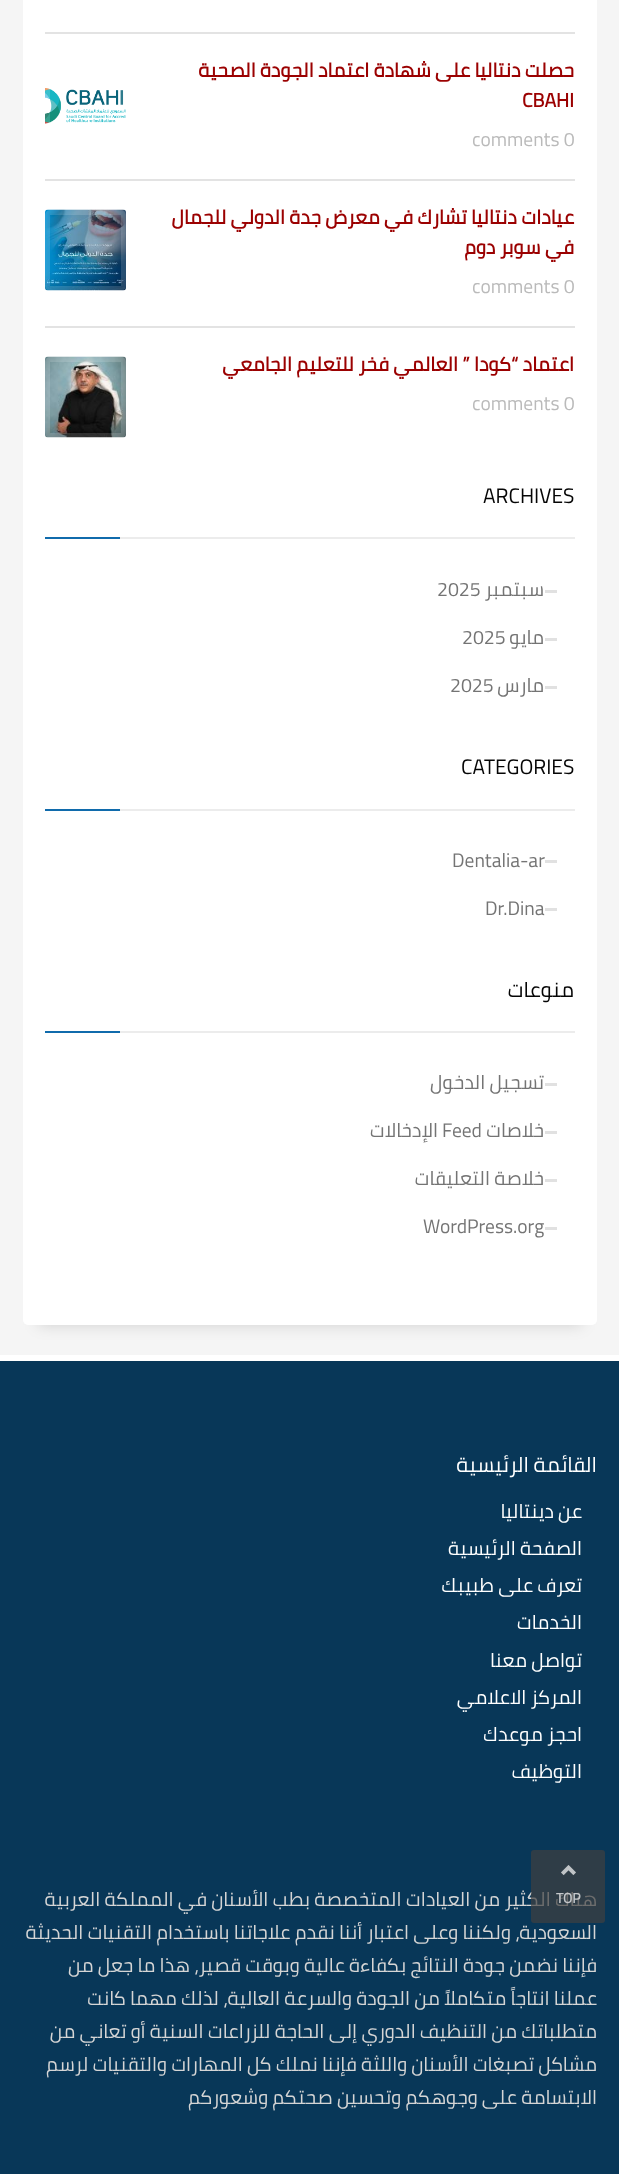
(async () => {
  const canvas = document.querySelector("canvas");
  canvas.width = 619;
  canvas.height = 2174;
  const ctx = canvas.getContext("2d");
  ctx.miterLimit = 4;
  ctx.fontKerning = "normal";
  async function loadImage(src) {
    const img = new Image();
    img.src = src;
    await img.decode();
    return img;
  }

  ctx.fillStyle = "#f5f5f5";
  ctx.fillRect(0, 0, 619, 2174);
  ctx.fillStyle = "rgba(0, 0, 0, 0.15)";
  ctx.filter = "blur(7.5px)";
  ctx.beginPath();
  ctx.rect(38, -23, 544, 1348);
  ctx.fill();
  ctx.filter = "none";
  ctx.fillStyle = "#ffffff";
  ctx.beginPath();
  ctx.roundRect(23, -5, 574, 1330, 5);
  ctx.fill();
  ctx.fillStyle = "#e3e3e3";
  ctx.fillRect(45, 32, 530, 2);
  ctx.fillRect(45, 179, 530, 2);
  ctx.drawImage(await loadImage("img/1.png"), 45, 88, 81, 36);
  ctx.beginPath();
  ctx.roundRect(47.5, 65.5, 76, 76, 2.5);
  ctx.strokeStyle = "rgba(255, 255, 255, 0.15)";
  ctx.lineWidth = 5;
  ctx.stroke();
  ctx.fillRect(45, 326, 530, 2);
  ctx.drawImage(await loadImage("img/2.png"), 45, 209, 81, 82);
  ctx.beginPath();
  ctx.roundRect(47.5, 212.5, 76, 76, 2.5);
  ctx.stroke();
  ctx.drawImage(await loadImage("img/3.png"), 45, 356, 81, 82);
  ctx.beginPath();
  ctx.roundRect(47.5, 359.5, 76, 76, 2.5);
  ctx.stroke();
  for (const [x, y, w, h, color] of [
    [120, 537, 455, 2, "#ececec"],
    [45, 537, 75, 2, "#106bac"],
    [545, 590, 12, 3, "#e1e1e1"],
    [545, 638, 12, 3, "#e1e1e1"],
    [545, 686, 12, 3, "#e1e1e1"],
    [120, 809, 455, 2, "#ececec"],
    [45, 809, 75, 2, "#106bac"],
    [545, 860, 12, 3, "#e1e1e1"],
    [545, 908, 12, 3, "#e1e1e1"],
    [120, 1031, 455, 2, "#ececec"],
    [45, 1031, 75, 2, "#106bac"],
    [545, 1083, 12, 3, "#e1e1e1"],
    [545, 1131, 12, 3, "#e1e1e1"],
    [545, 1179, 12, 3, "#e1e1e1"],
    [545, 1227, 12, 3, "#e1e1e1"],
    [0, 1361, 619, 813, "#083758"],
    [0, 1355, 619, 6, "#ffffff"],
  ]) {
    ctx.fillStyle = color;
    ctx.fillRect(x, y, w, h);
  }
  ctx.direction = "rtl";
  ctx.font = "bold 19.5px Cairo";
  ctx.fillStyle = "#9b0101";
  ctx.fillText("حصلت دنتاليا على شهادة اعتماد الجودة الصحية", 574, 77);
  ctx.direction = "ltr";
  ctx.fillText("CBAHI", 522, 107);
  ctx.font = "19.5px Cairo";
  ctx.fillStyle = "#bababa";
  ctx.fillText("comments 0", 472, 146);
  ctx.direction = "rtl";
  ctx.font = "bold 19.5px Cairo";
  ctx.fillStyle = "#9b0101";
  ctx.fillText("عيادات دنتاليا تشارك في معرض جدة الدولي للجمال", 574, 224);
  ctx.fillText("في سوبر دوم", 574, 254);
  ctx.direction = "ltr";
  ctx.font = "19.5px Cairo";
  ctx.fillStyle = "#bababa";
  ctx.fillText("comments 0", 472, 293);
  ctx.direction = "rtl";
  ctx.font = "bold 19.5px Cairo";
  ctx.fillStyle = "#9b0101";
  ctx.fillText("اعتماد “كودا ” العالمي فخر للتعليم الجامعي", 574, 371);
  ctx.direction = "ltr";
  ctx.font = "19.5px Cairo";
  ctx.fillStyle = "#bababa";
  ctx.fillText("comments 0", 472, 410);
  ctx.font = "21px Cairo";
  ctx.fillStyle = "#050505";
  ctx.fillText("ARCHIVES", 483, 503);
  ctx.direction = "rtl";
  ctx.font = "19.5px Cairo";
  ctx.fillStyle = "#747474";
  ctx.fillText("سبتمبر", 544, 596);
  ctx.direction = "ltr";
  ctx.fillText("2025", 437, 596);
  ctx.direction = "rtl";
  ctx.fillText("مايو", 544, 644);
  ctx.direction = "ltr";
  ctx.fillText("2025", 462, 644);
  ctx.direction = "rtl";
  ctx.fillText("مارس", 544, 692);
  ctx.direction = "ltr";
  ctx.fillText("2025", 450, 692);
  ctx.font = "21px Cairo";
  ctx.fillStyle = "#050505";
  ctx.fillText("CATEGORIES", 461, 774);
  ctx.font = "19.5px Cairo";
  ctx.fillStyle = "#747474";
  ctx.fillText("Dentalia-ar", 452, 867);
  ctx.fillText("Dr.Dina", 485, 915);
  ctx.direction = "rtl";
  ctx.font = "21px Cairo";
  ctx.fillStyle = "#050505";
  ctx.fillText("منوعات", 574, 997);
  ctx.font = "19.5px Cairo";
  ctx.fillStyle = "#747474";
  ctx.fillText("تسجيل الدخول", 544, 1089);
  ctx.fillText("خلاصات", 544, 1137);
  ctx.direction = "ltr";
  ctx.fillText("Feed", 442, 1137);
  ctx.direction = "rtl";
  ctx.fillText("الإدخالات", 438, 1137);
  ctx.fillText("خلاصة التعليقات", 544, 1185);
  ctx.direction = "ltr";
  ctx.fillText("WordPress.org", 423, 1233);
  ctx.direction = "rtl";
  ctx.font = "21px Cairo";
  ctx.fillStyle = "#ffffff";
  ctx.fillText("القائمة الرئيسية", 597, 1472);
  ctx.font = "19.5px Cairo";
  for (const [text, x, y] of [
    ["عن دينتاليا", 582, 1518],
    ["الصفحة الرئيسية", 582, 1555],
    ["تعرف على طبيبك", 582, 1592],
    ["الخدمات", 582, 1629],
    ["تواصل معنا", 582, 1667],
    ["المركز الاعلامي", 582, 1704],
    ["احجز موعدك", 582, 1741],
    ["التوظيف", 582, 1778],
  ]) {
    ctx.fillText(text, x, y);
  }
  ctx.fillStyle = "#d5d5d5";
  for (const [text, x, y] of [
    ["هناك الكثير من العيادات المتخصصة بطب الأسنان في المملكة العربية", 597, 1906],
    ["السعودية، ولكننا وعلى اعتبار أننا نقدم علاجاتنا باستخدام التقنيات الحديثة", 597, 1939],
    ["فإننا نضمن جودة النتائج بكفاءة عالية وبوقت قصير، هذا ما جعل من", 597, 1972],
    ["عملنا انتاجاً متكاملاً من الجودة والسرعة العالية، لذلك مهما كانت", 597, 2005],
    ["متطلباتك من التنظيف الدوري إلى الحاجة للزراعات السنية أو تعاني من", 597, 2038],
    ["مشاكل تصبغات الأسنان واللثة فإننا نملك كل المهارات والتقنيات لرسم", 597, 2071],
    ["الابتسامة على وجوهكم وتحسين صحتكم وشعوركم", 597, 2104],
  ]) {
    ctx.fillText(text, x, y);
  }
  ctx.fillStyle = "rgba(64, 64, 64, 0.7)";
  ctx.beginPath();
  ctx.roundRect(531, 1850, 74, 73, 3);
  ctx.fill();
  ctx.drawImage(await loadImage("img/4.png"), 561, 1865, 15, 11);
  ctx.direction = "ltr";
  ctx.font = "bold 14px Cairo";
  ctx.fillStyle = "#c4c7ca";
  ctx.fillText("TOP", 556, 1903);
})();
